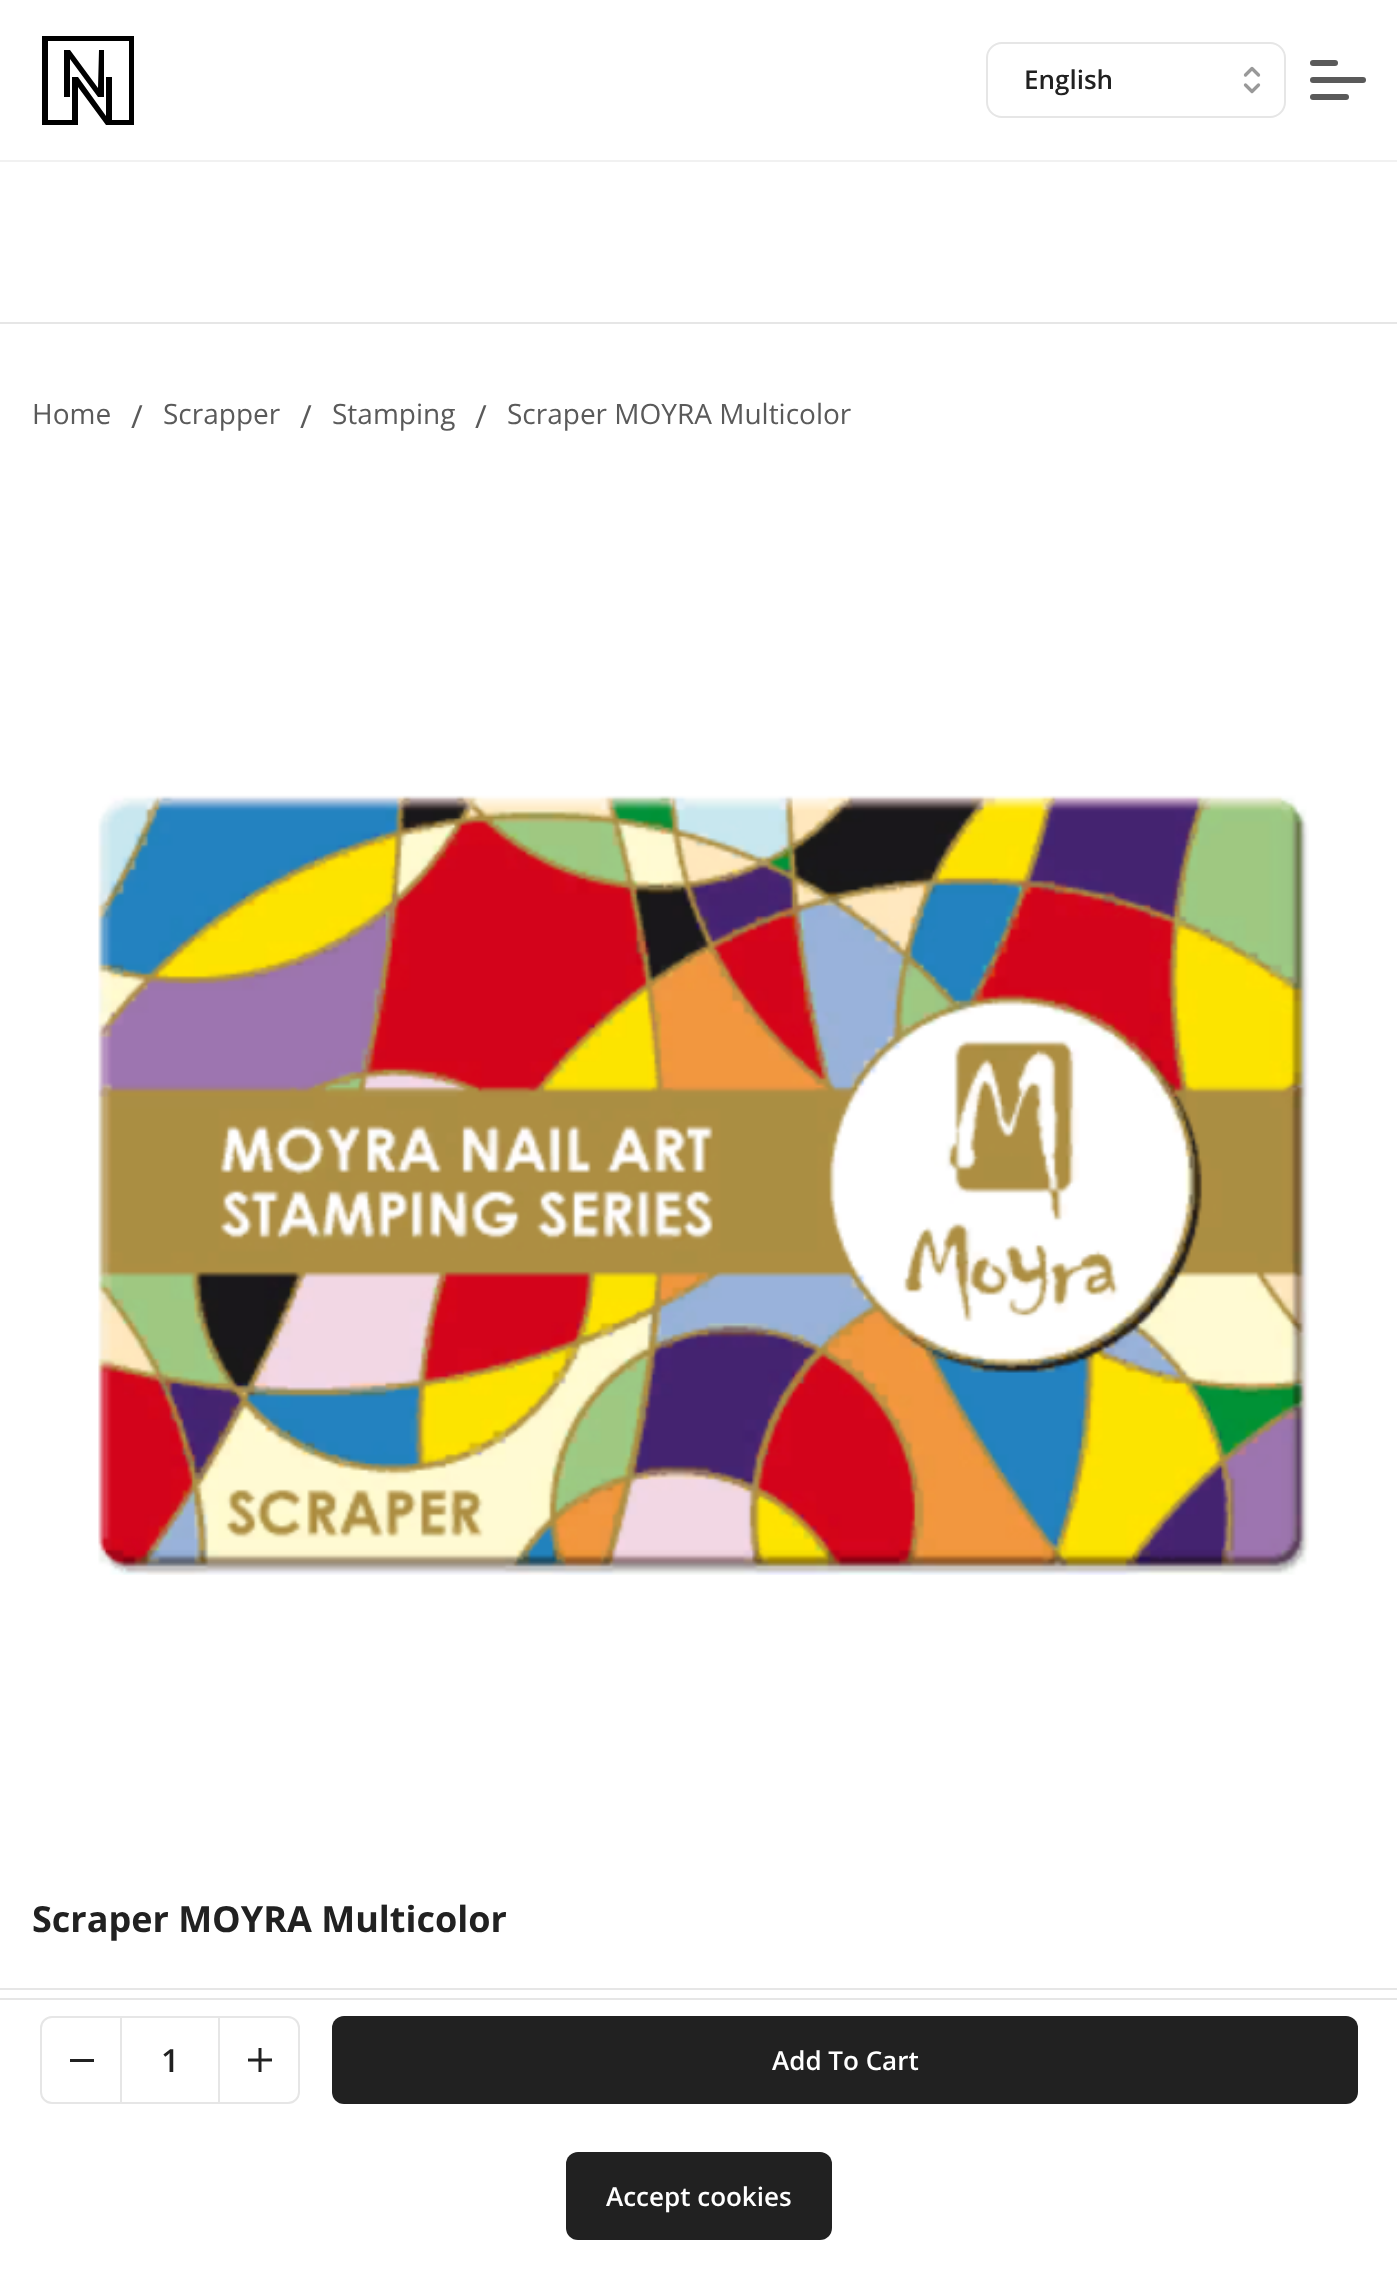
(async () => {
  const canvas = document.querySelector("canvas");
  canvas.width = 1397;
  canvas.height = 2280;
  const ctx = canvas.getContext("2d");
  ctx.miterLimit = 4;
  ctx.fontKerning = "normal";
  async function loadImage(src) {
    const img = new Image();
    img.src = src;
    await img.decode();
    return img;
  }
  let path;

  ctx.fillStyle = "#ffffff";
  ctx.fillRect(0, 0, 1397, 2280);
  ctx.fillStyle = "#f1f1f1";
  ctx.fillRect(0, 160, 1397, 2);
  ctx.fillStyle = "#000000";
  path = new Path2D("M42 80V125H78V87L106 125H134V36H42ZM129 80V120H112V77H106V116L78 77H72V120H48V41H129Z");
  ctx.fill(path);
  path = new Path2D("M64 74V97H70V59L98 97H104V50H99L98 88L70 50H64Z");
  ctx.fill(path);
  ctx.beginPath();
  ctx.roundRect(987, 43, 298, 74, 15);
  ctx.strokeStyle = "#e6e6e6";
  ctx.lineWidth = 2;
  ctx.stroke();
  path = new Path2D("M1245.5 75L1252 68.5L1258.5 75M1258.5 85L1252 91.5L1245.5 85");
  ctx.strokeStyle = "#999999";
  ctx.lineWidth = 3.3;
  ctx.lineCap = "round";
  ctx.lineJoin = "round";
  ctx.stroke(path);
  ctx.fillStyle = "#5a5a5a";
  ctx.beginPath();
  ctx.roundRect(1310, 60, 28, 6, 3);
  ctx.fill();
  ctx.beginPath();
  ctx.roundRect(1310, 77, 56, 6, 3);
  ctx.fill();
  ctx.beginPath();
  ctx.roundRect(1310, 94, 39, 6, 3);
  ctx.fill();
  ctx.fillStyle = "#e6e6e6";
  ctx.fillRect(0, 322, 1397, 2);
  ctx.drawImage(await loadImage("img/1.png"), 98, 795, 1211, 780);
  ctx.fillRect(0, 1988, 1397, 2);
  ctx.fillRect(0, 1998, 1397, 2);
  ctx.beginPath();
  ctx.roundRect(41, 2017, 258, 86, 11);
  ctx.strokeStyle = "#e6e6e6";
  ctx.lineWidth = 2;
  ctx.lineJoin = "miter";
  ctx.stroke();
  for (const [x, y, w, h, color] of [
    [120, 2018, 2, 84, "#e6e6e6"],
    [70, 2059, 24, 3, "#212121"],
    [218, 2018, 2, 84, "#e6e6e6"],
  ]) {
    ctx.fillStyle = color;
    ctx.fillRect(x, y, w, h);
  }
  ctx.drawImage(await loadImage("img/2.png"), 248, 2048, 24, 24);
  ctx.fillStyle = "#212121";
  ctx.beginPath();
  ctx.roundRect(332, 2016, 1026, 88, 12);
  ctx.fill();
  ctx.beginPath();
  ctx.roundRect(566, 2152, 266, 88, 12);
  ctx.fill();
  ctx.font = "600 26px Open Sans";
  ctx.fillText("English", 1024, 89);
  ctx.font = "28px Open Sans";
  ctx.fillStyle = "#5a5a5a";
  ctx.fillText("Home", 32, 424);
  ctx.font = "32px Open Sans";
  ctx.fillText("/", 131, 428);
  ctx.font = "28px Open Sans";
  ctx.fillText("Scrapper", 163, 424);
  ctx.font = "32px Open Sans";
  ctx.fillText("/", 300, 428);
  ctx.font = "28px Open Sans";
  ctx.fillText("Stamping", 332, 424);
  ctx.font = "32px Open Sans";
  ctx.fillText("/", 475, 428);
  ctx.font = "28px Open Sans";
  ctx.fillText("Scraper MOYRA Multicolor", 507, 424);
  ctx.font = "bold 36px Open Sans";
  ctx.fillStyle = "#212121";
  ctx.fillText("Scraper MOYRA Multicolor", 32, 1932);
  ctx.font = "600 32px Open Sans";
  ctx.fillText("1", 161, 2072);
  ctx.font = "600 26px Open Sans";
  ctx.fillStyle = "#ffffff";
  ctx.fillText("Add To Cart", 772, 2070);
  ctx.fillText("Accept cookies", 606, 2206);
})();
